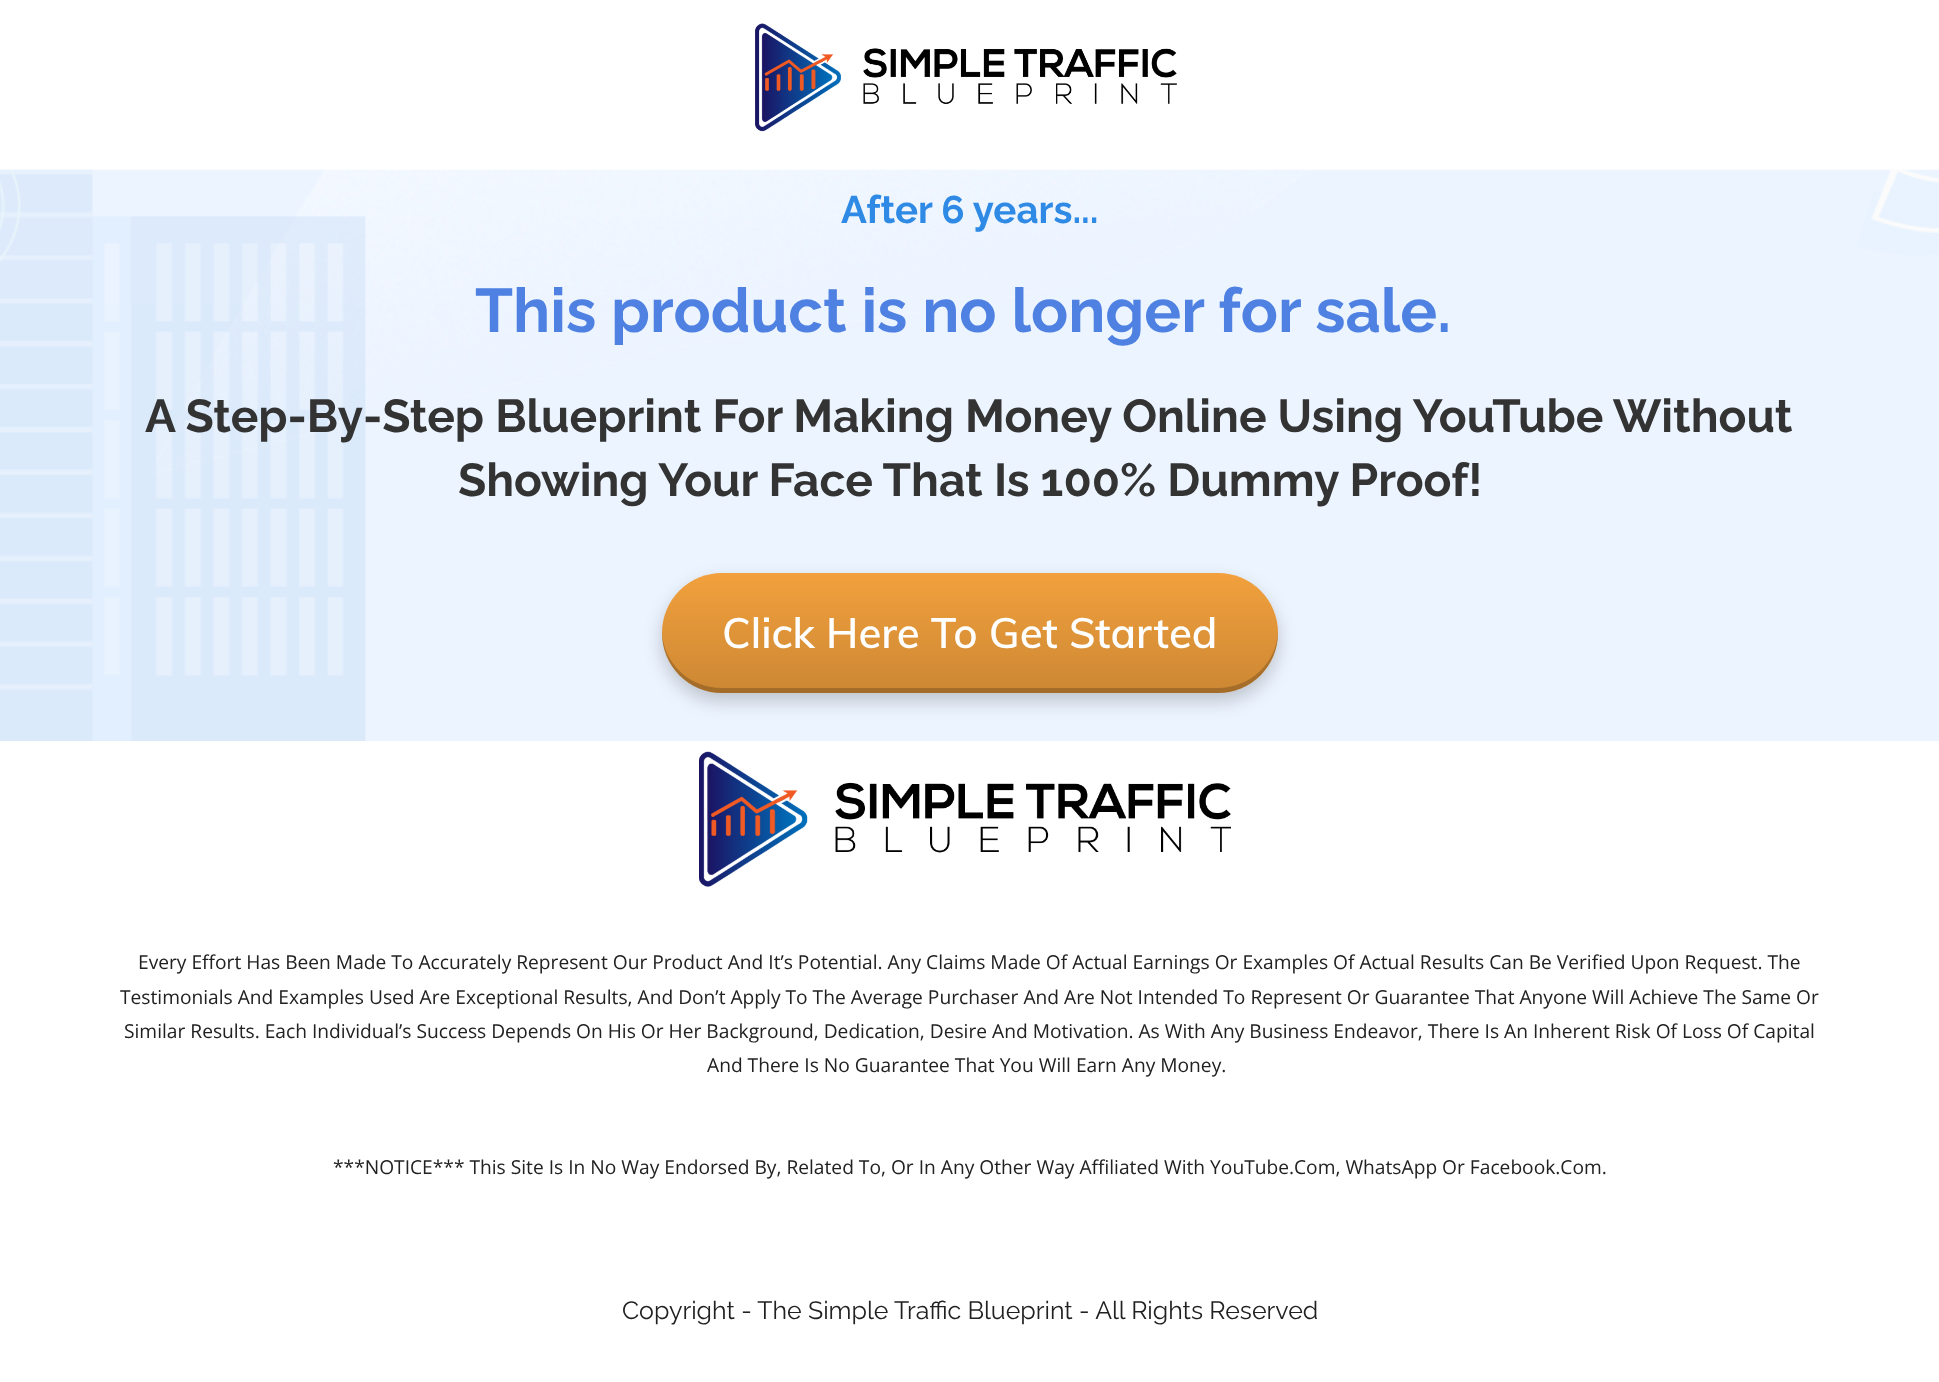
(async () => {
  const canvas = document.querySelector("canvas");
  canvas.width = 1939;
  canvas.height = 1382;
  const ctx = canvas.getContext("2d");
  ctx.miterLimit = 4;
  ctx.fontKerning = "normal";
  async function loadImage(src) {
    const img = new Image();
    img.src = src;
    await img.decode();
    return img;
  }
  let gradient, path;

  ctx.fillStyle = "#ffffff";
  ctx.fillRect(0, 0, 1939, 1382);
  ctx.drawImage(await loadImage("img/1.png"), 755, 23, 422, 109);
  ctx.drawImage(await loadImage("img/2.png"), 0, 169, 1939, 572);
  ctx.fillStyle = "rgba(0, 0, 0, 0.2)";
  ctx.filter = "blur(9px)";
  ctx.beginPath();
  ctx.roundRect(662, 581, 616, 120, 60);
  ctx.fill();
  ctx.filter = "none";
  ctx.fillStyle = "#ffa940";
  ctx.beginPath();
  ctx.roundRect(662, 573, 616, 120, 60);
  ctx.fill();
  gradient = ctx.createLinearGradient(970, 573, 970, 693);
  gradient.addColorStop(0, "rgba(0, 0, 0, 0.05)");
  gradient.addColorStop(1, "rgba(0, 0, 0, 0.2)");
  ctx.fillStyle = gradient;
  ctx.beginPath();
  ctx.roundRect(662, 573, 616, 120, 60);
  ctx.fill();
  ctx.fillStyle = "rgba(0, 0, 0, 0.2)";
  path = new Path2D("M662 631V633C662 666 689 693 722 693H1218C1251 693 1278 666 1278 633V631C1277 663 1250 688 1218 688H722C689 688 663 663 662 631Z");
  ctx.fill(path);
  ctx.drawImage(await loadImage("img/3.png"), 699, 751, 532, 136);
  ctx.font = "bold 38.5px Raleway";
  ctx.fillStyle = "#2e8ae4";
  ctx.fillText("After 6 years...", 841, 223);
  ctx.font = "bold 61.5px Raleway";
  ctx.fillStyle = "#4e81e1";
  ctx.fillText("This product is no longer for sale.", 475, 332);
  ctx.font = "bold 46.1px Raleway";
  ctx.fillStyle = "#333333";
  ctx.fillText("A Step-By-Step Blueprint For Making Money Online Using YouTube Without", 145, 432);
  ctx.fillText("Showing Your Face That Is 100% Dummy Proof!", 458, 496);
  ctx.font = "600 42px Muli";
  ctx.fillStyle = "#ffffff";
  ctx.fillText("Click Here To Get Started", 722, 648);
  ctx.font = "19.2px Open Sans";
  ctx.fillStyle = "#212121";
  for (const [text, x, y] of [
    ["Every Effort Has Been Made To Accurately Represent Our Product And It’s Potential. Any Claims Made Of Actual Earnings Or Examples Of Actual Results Can Be Verified Upon Request. The", 138, 969],
    ["Testimonials And Examples Used Are Exceptional Results, And Don’t Apply To The Average Purchaser And Are Not Intended To Represent Or Guarantee That Anyone Will Achieve The Same Or", 120, 1004],
    ["Similar Results. Each Individual’s Success Depends On His Or Her Background, Dedication, Desire And Motivation. As With Any Business Endeavor, There Is An Inherent Risk Of Loss Of Capital", 124, 1038],
    ["And There Is No Guarantee That You Will Earn Any Money.", 707, 1072],
    ["***NOTICE*** This Site Is In No Way Endorsed By, Related To, Or In Any Other Way Affiliated With YouTube.Com, WhatsApp Or Facebook.Com.", 333, 1174],
  ]) {
    ctx.fillText(text, x, y);
  }
  ctx.font = "24.95px Raleway";
  ctx.fillText("Copyright - The Simple Traffic Blueprint - All Rights Reserved", 622, 1319);
})();
